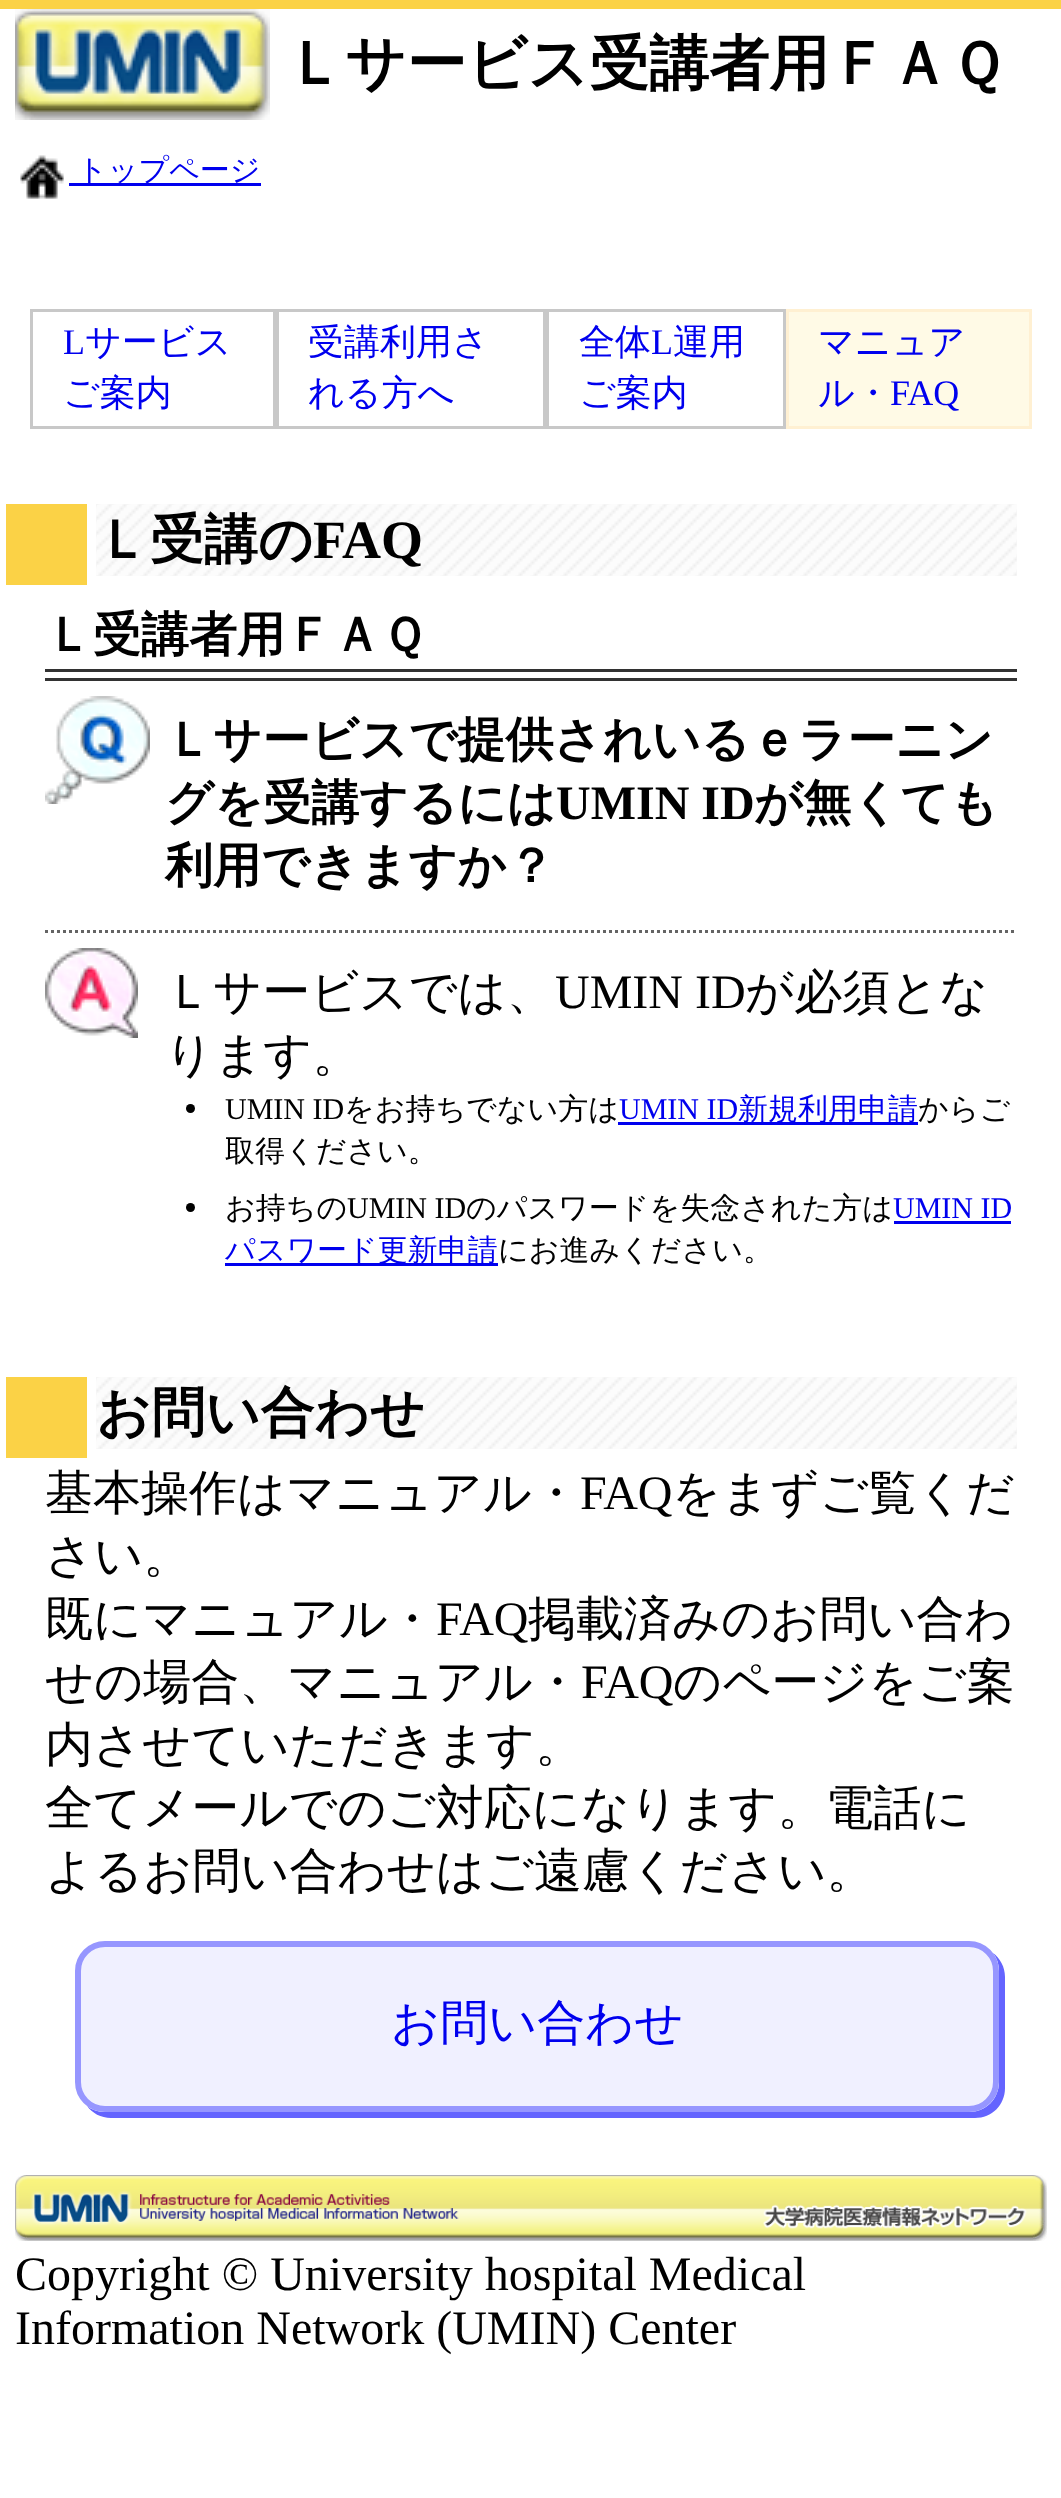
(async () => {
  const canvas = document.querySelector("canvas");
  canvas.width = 1061;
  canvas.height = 2498;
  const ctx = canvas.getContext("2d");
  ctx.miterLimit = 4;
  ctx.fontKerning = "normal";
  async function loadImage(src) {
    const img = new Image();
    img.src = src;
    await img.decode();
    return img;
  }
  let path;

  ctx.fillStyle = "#ffffff";
  ctx.fillRect(0, 0, 1061, 2498);
  ctx.fillStyle = "#fbd246";
  ctx.fillRect(0, 0, 1061, 9);
  ctx.drawImage(await loadImage("img/1.png"), 15, 9, 255, 111);
  ctx.drawImage(await loadImage("img/2.png"), 20, 155, 44, 44);
  ctx.fillStyle = "#0000ee";
  ctx.fillRect(69, 183, 192, 3);
  ctx.strokeStyle = "#c8c8c8";
  ctx.lineWidth = 3;
  ctx.strokeRect(31.5, 310.5, 243, 117);
  ctx.strokeRect(277.5, 310.5, 267, 117);
  ctx.strokeRect(547.5, 310.5, 237, 117);
  ctx.fillStyle = "#fffae6";
  ctx.beginPath();
  ctx.rect(787.5, 310.5, 243, 117);
  ctx.fill();
  ctx.strokeStyle = "#fff0d2";
  ctx.stroke();
  ctx.drawImage(await loadImage("img/3.png"), 96, 504, 921, 72);
  for (const [x, y, w, h, color] of [
    [6, 504, 81, 81, "#fbd246"],
    [45, 669, 972, 3, "#323232"],
    [45, 678, 972, 3, "#323232"],
  ]) {
    ctx.fillStyle = color;
    ctx.fillRect(x, y, w, h);
  }
  path = new Path2D("M45 931.5H1017");
  ctx.strokeStyle = "#646464";
  ctx.setLineDash([3, 3]);
  ctx.stroke(path);
  ctx.drawImage(await loadImage("img/4.png"), 45, 696, 105, 108);
  ctx.drawImage(await loadImage("img/5.png"), 45, 948, 93, 90);
  ctx.fillStyle = "#000000";
  ctx.beginPath();
  ctx.arc(190.5, 1108.5, 4.5, 0, Math.PI * 2);
  ctx.fill();
  ctx.fillStyle = "#0000ee";
  ctx.fillRect(618, 1122, 300, 3);
  ctx.fillStyle = "#000000";
  ctx.beginPath();
  ctx.arc(190.5, 1207.5, 4.5, 0, Math.PI * 2);
  ctx.fill();
  ctx.fillStyle = "#0000ee";
  ctx.fillRect(894, 1221, 117, 3);
  ctx.fillRect(225, 1263, 273, 3);
  ctx.drawImage(await loadImage("img/3.png"), 96, 1377, 921, 72);
  ctx.fillStyle = "#fbd246";
  ctx.fillRect(6, 1377, 81, 81);
  ctx.fillStyle = "#6464ff";
  path = new Path2D("M87 2106C92 2113 101 2118 111 2118H975C992 2118 1005 2105 1005 2088V1977C1005 1967 1000 1958 993 1953C997 1958 999 1964 999 1971V2082C999 2099 986 2112 969 2112H105C98 2112 92 2110 87 2106Z");
  ctx.fill(path);
  ctx.fillStyle = "#f0f0ff";
  ctx.beginPath();
  ctx.roundRect(78, 1944, 918, 165, 27);
  ctx.fill();
  ctx.strokeStyle = "#9696ff";
  ctx.lineWidth = 6;
  ctx.setLineDash([]);
  ctx.stroke();
  ctx.drawImage(await loadImage("img/6.png"), 15, 2175, 1032, 66);
  ctx.font = "bold 60px WenQuanYi Zen Hei";
  ctx.fillStyle = "#000000";
  ctx.fillText("Ｌサービス受講者用ＦＡＱ", 285, 84);
  ctx.font = "500 30px WenQuanYi Zen Hei";
  ctx.fillStyle = "#0000ee";
  ctx.fillText("トップページ", 77, 180);
  ctx.font = "36px Liberation Serif";
  ctx.fillText("L", 63, 354);
  ctx.font = "500 36px WenQuanYi Zen Hei";
  for (const [text, x, y] of [
    ["サービス", 85, 354],
    ["ご案内", 63, 405],
    ["受講利用さ", 308, 354],
    ["れる方へ", 308, 405],
    ["全体", 579, 354],
  ]) {
    ctx.fillText(text, x, y);
  }
  ctx.font = "36px Liberation Serif";
  ctx.fillText("L", 651, 354);
  ctx.font = "500 36px WenQuanYi Zen Hei";
  for (const [text, x, y] of [
    ["運用", 673, 354],
    ["ご案内", 579, 405],
    ["マニュア", 818, 354],
    ["ル・", 818, 405],
  ]) {
    ctx.fillText(text, x, y);
  }
  ctx.font = "36px Liberation Serif";
  ctx.fillText("FAQ", 890, 405);
  ctx.font = "bold 54px WenQuanYi Zen Hei";
  ctx.fillStyle = "#000000";
  ctx.fillText("Ｌ受講の", 96, 558);
  ctx.font = "bold 54px Liberation Serif";
  ctx.fillText("FAQ", 313, 558);
  ctx.font = "bold 48px WenQuanYi Zen Hei";
  for (const [text, x, y] of [
    ["Ｌ受講者用ＦＡＱ", 45, 651],
    ["Ｌサービスで提供されいるｅラーニン", 165, 756],
    ["グを受講するには", 165, 819],
  ]) {
    ctx.fillText(text, x, y);
  }
  ctx.font = "bold 48px Liberation Serif";
  ctx.fillText("UMIN ID", 556, 819);
  ctx.font = "bold 48px WenQuanYi Zen Hei";
  ctx.fillText("が無くても", 754, 819);
  ctx.fillText("利用できますか？", 165, 882);
  ctx.font = "500 48px WenQuanYi Zen Hei";
  ctx.fillText("Ｌサービスでは、", 165, 1008);
  ctx.font = "48px Liberation Serif";
  ctx.fillText("UMIN ID", 555, 1008);
  ctx.font = "500 48px WenQuanYi Zen Hei";
  ctx.fillText("が必須とな", 745, 1008);
  ctx.fillText("ります。", 165, 1071);
  ctx.font = "30px Liberation Serif";
  ctx.fillText("UMIN ID", 225, 1119);
  ctx.font = "500 30px WenQuanYi Zen Hei";
  ctx.fillText("をお持ちでない方は", 344, 1119);
  ctx.font = "30px Liberation Serif";
  ctx.fillStyle = "#0000ee";
  ctx.fillText("UMIN ID", 619, 1119);
  ctx.font = "500 30px WenQuanYi Zen Hei";
  ctx.fillText("新規利用申請", 738, 1119);
  ctx.fillStyle = "#000000";
  for (const [text, x, y] of [
    ["からご", 918, 1119],
    ["取得ください。", 225, 1161],
    ["お持ちの", 225, 1218],
  ]) {
    ctx.fillText(text, x, y);
  }
  ctx.font = "30px Liberation Serif";
  ctx.fillText("UMIN ID", 347, 1218);
  ctx.font = "500 30px WenQuanYi Zen Hei";
  ctx.fillText("のパスワードを失念された方は", 466, 1218);
  ctx.font = "30px Liberation Serif";
  ctx.fillStyle = "#0000ee";
  ctx.fillText("UMIN ID", 893, 1218);
  ctx.font = "500 30px WenQuanYi Zen Hei";
  ctx.fillText("パスワード更新申請", 225, 1260);
  ctx.fillStyle = "#000000";
  ctx.fillText("にお進みください。", 498, 1260);
  ctx.font = "bold 54px WenQuanYi Zen Hei";
  ctx.fillText("お問い合わせ", 96, 1431);
  ctx.font = "500 48px WenQuanYi Zen Hei";
  ctx.fillText("基本操作はマニュアル・", 45, 1509);
  ctx.font = "48px Liberation Serif";
  ctx.fillText("FAQ", 580, 1509);
  ctx.font = "500 48px WenQuanYi Zen Hei";
  for (const [text, x, y] of [
    ["をまずご覧くだ", 672, 1509],
    ["さい。", 45, 1572],
    ["既にマニュアル・", 45, 1635],
  ]) {
    ctx.fillText(text, x, y);
  }
  ctx.font = "48px Liberation Serif";
  ctx.fillText("FAQ", 436, 1635);
  ctx.font = "500 48px WenQuanYi Zen Hei";
  ctx.fillText("掲載済みのお問い合わ", 528, 1635);
  ctx.fillText("せの場合、マニュアル・", 45, 1698);
  ctx.font = "48px Liberation Serif";
  ctx.fillText("FAQ", 581, 1698);
  ctx.font = "500 48px WenQuanYi Zen Hei";
  for (const [text, x, y] of [
    ["のページをご案", 673, 1698],
    ["内させていただきます。", 45, 1761],
    ["全てメールでのご対応になります。電話に", 45, 1824],
    ["よるお問い合わせはご遠慮ください。", 45, 1887],
  ]) {
    ctx.fillText(text, x, y);
  }
  ctx.fillStyle = "#0000ee";
  ctx.fillText("お問い合わせ", 391, 2039);
  ctx.font = "48px Liberation Serif";
  ctx.fillStyle = "#000000";
  ctx.fillText("Copyright © University hospital Medical", 15, 2290);
  ctx.fillText("Information Network (UMIN) Center", 15, 2344);
})();
